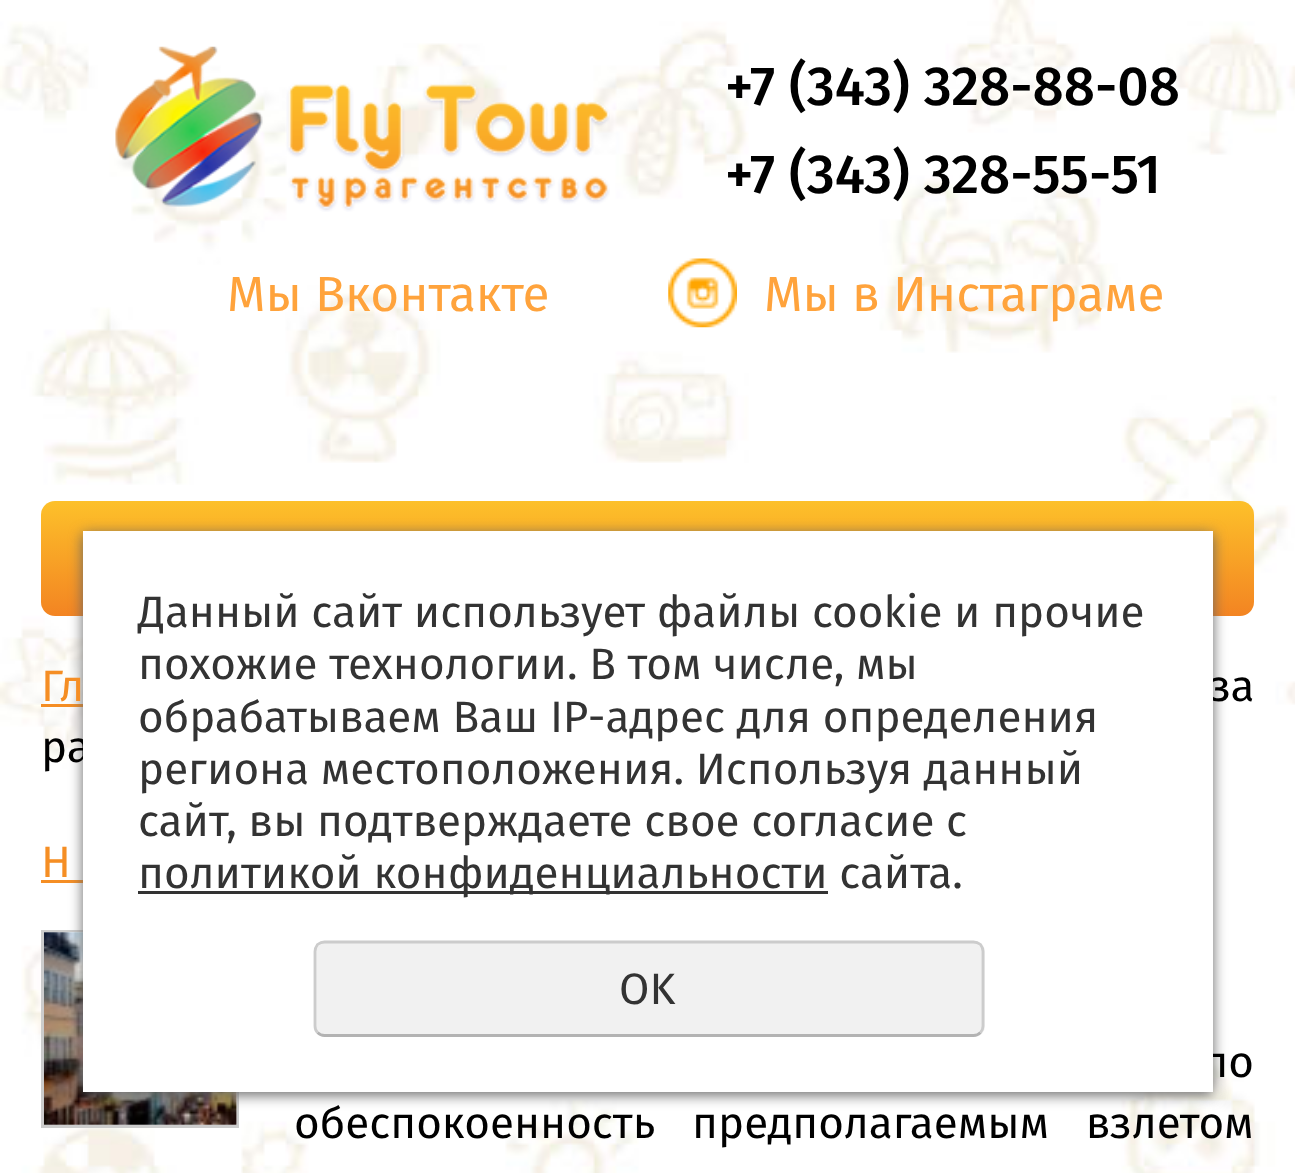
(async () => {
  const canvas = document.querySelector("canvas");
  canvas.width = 1295;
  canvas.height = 1173;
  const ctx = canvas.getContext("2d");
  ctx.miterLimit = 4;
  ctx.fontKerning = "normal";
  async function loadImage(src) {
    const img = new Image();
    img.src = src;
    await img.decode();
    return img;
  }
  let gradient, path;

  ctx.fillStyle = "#ffffff";
  ctx.fillRect(0, 0, 1295, 1173);
  ctx.drawImage(await loadImage("img/1.png"), 0, 0, 1295, 1173);
  ctx.drawImage(await loadImage("img/2.png"), 115, 46, 495, 166);
  ctx.drawImage(await loadImage("img/3.png"), 668, 258, 69, 70);
  gradient = ctx.createLinearGradient(648, 500, 648, 616);
  gradient.addColorStop(0, "#fdc12a");
  gradient.addColorStop(1, "#f38422");
  ctx.fillStyle = gradient;
  ctx.beginPath();
  ctx.roundRect(41, 501, 1213, 115, 14);
  ctx.fill();
  ctx.fillStyle = "#f58e24";
  ctx.fillRect(41, 704, 42, 3);
  ctx.fillRect(41, 880, 42, 3);
  ctx.strokeStyle = "#cccccc";
  ctx.lineWidth = 3;
  ctx.strokeRect(42.5, 931.5, 195, 195);
  ctx.fillStyle = "#ffffff";
  ctx.fillRect(44, 932, 193, 193);
  ctx.drawImage(await loadImage("img/4.png"), 44, 932, 193, 193);
  ctx.fillStyle = "#666666";
  ctx.filter = "blur(7px)";
  ctx.beginPath();
  ctx.rect(83, 534, 1130, 561);
  ctx.fill();
  ctx.filter = "none";
  ctx.font = "500 55px Fira Sans";
  ctx.fillStyle = "#000000";
  ctx.fillText("+7 (343) 328-88-08", 725, 105);
  ctx.fillText("+7 (343) 328-55-51", 725, 193);
  ctx.font = "49.5px Fira Sans";
  ctx.fillStyle = "#ffa33c";
  ctx.fillText("Мы Вконтакте", 227, 311);
  ctx.fillText("Мы в Инстаграме", 764, 311);
  ctx.font = "44px Fira Sans";
  ctx.fillStyle = "#f58e24";
  ctx.fillText("Гл", 41, 701);
  ctx.wordSpacing = "14px";
  ctx.fillStyle = "#000000";
  ctx.fillText("за", 1209, 701);
  ctx.wordSpacing = "0px";
  ctx.fillText("ра", 41, 762);
  ctx.fillStyle = "#f58e24";
  ctx.fillText("Н", 41, 877);
  ctx.fillStyle = "#000000";
  ctx.fillText("ло", 1203, 1077);
  ctx.wordSpacing = "25px";
  ctx.fillText("обеспокоенность предполагаемым взлетом", 294, 1138);
  ctx.fillStyle = "#ffffff";
  ctx.fillRect(83, 531, 1130, 561);
  ctx.wordSpacing = "0px";
  ctx.fillStyle = "#333333";
  for (const [text, x, y] of [
    ["Данный сайт использует файлы cookie и прочие", 138, 627],
    ["похожие технологии. В том числе, мы", 138, 679],
    ["обрабатываем Ваш IP-адрес для определения", 138, 732],
    ["региона местоположения. Используя данный", 138, 784],
    ["сайт, вы подтверждаете свое согласие с", 138, 836],
  ]) {
    ctx.fillText(text, x, y);
  }
  ctx.fillRect(138, 891, 690, 3);
  ctx.fillText("политикой конфиденциальности сайта.", 138, 888);
  ctx.fillStyle = "#f1f1f1";
  ctx.beginPath();
  ctx.roundRect(314, 941, 671, 96, 11);
  ctx.fill();
  path = new Path2D("M980.5 1032.5C978.5 1034.5 976 1035.5 973.5 1035.5H324.5C322 1035.5 319.5 1034.5 317.5 1032.5");
  ctx.strokeStyle = "#b3b3b3";
  ctx.lineWidth = 2.8;
  ctx.stroke(path);
  path = new Path2D("M317.5 1032.5C316 1031 315 1028.5 315 1026V951.5C315 949 316 946.5 317.5 944.5C319.5 943 322 942 324.5 942H973.5C976 942 978.5 943 980.5 944.5C982 946.5 983 949 983 951.5V1026C983 1028.5 982 1031 980.5 1032.5");
  ctx.strokeStyle = "#cccccc";
  ctx.stroke(path);
  ctx.fillStyle = "#333333";
  ctx.fillText("OK", 619, 1004);
})();
